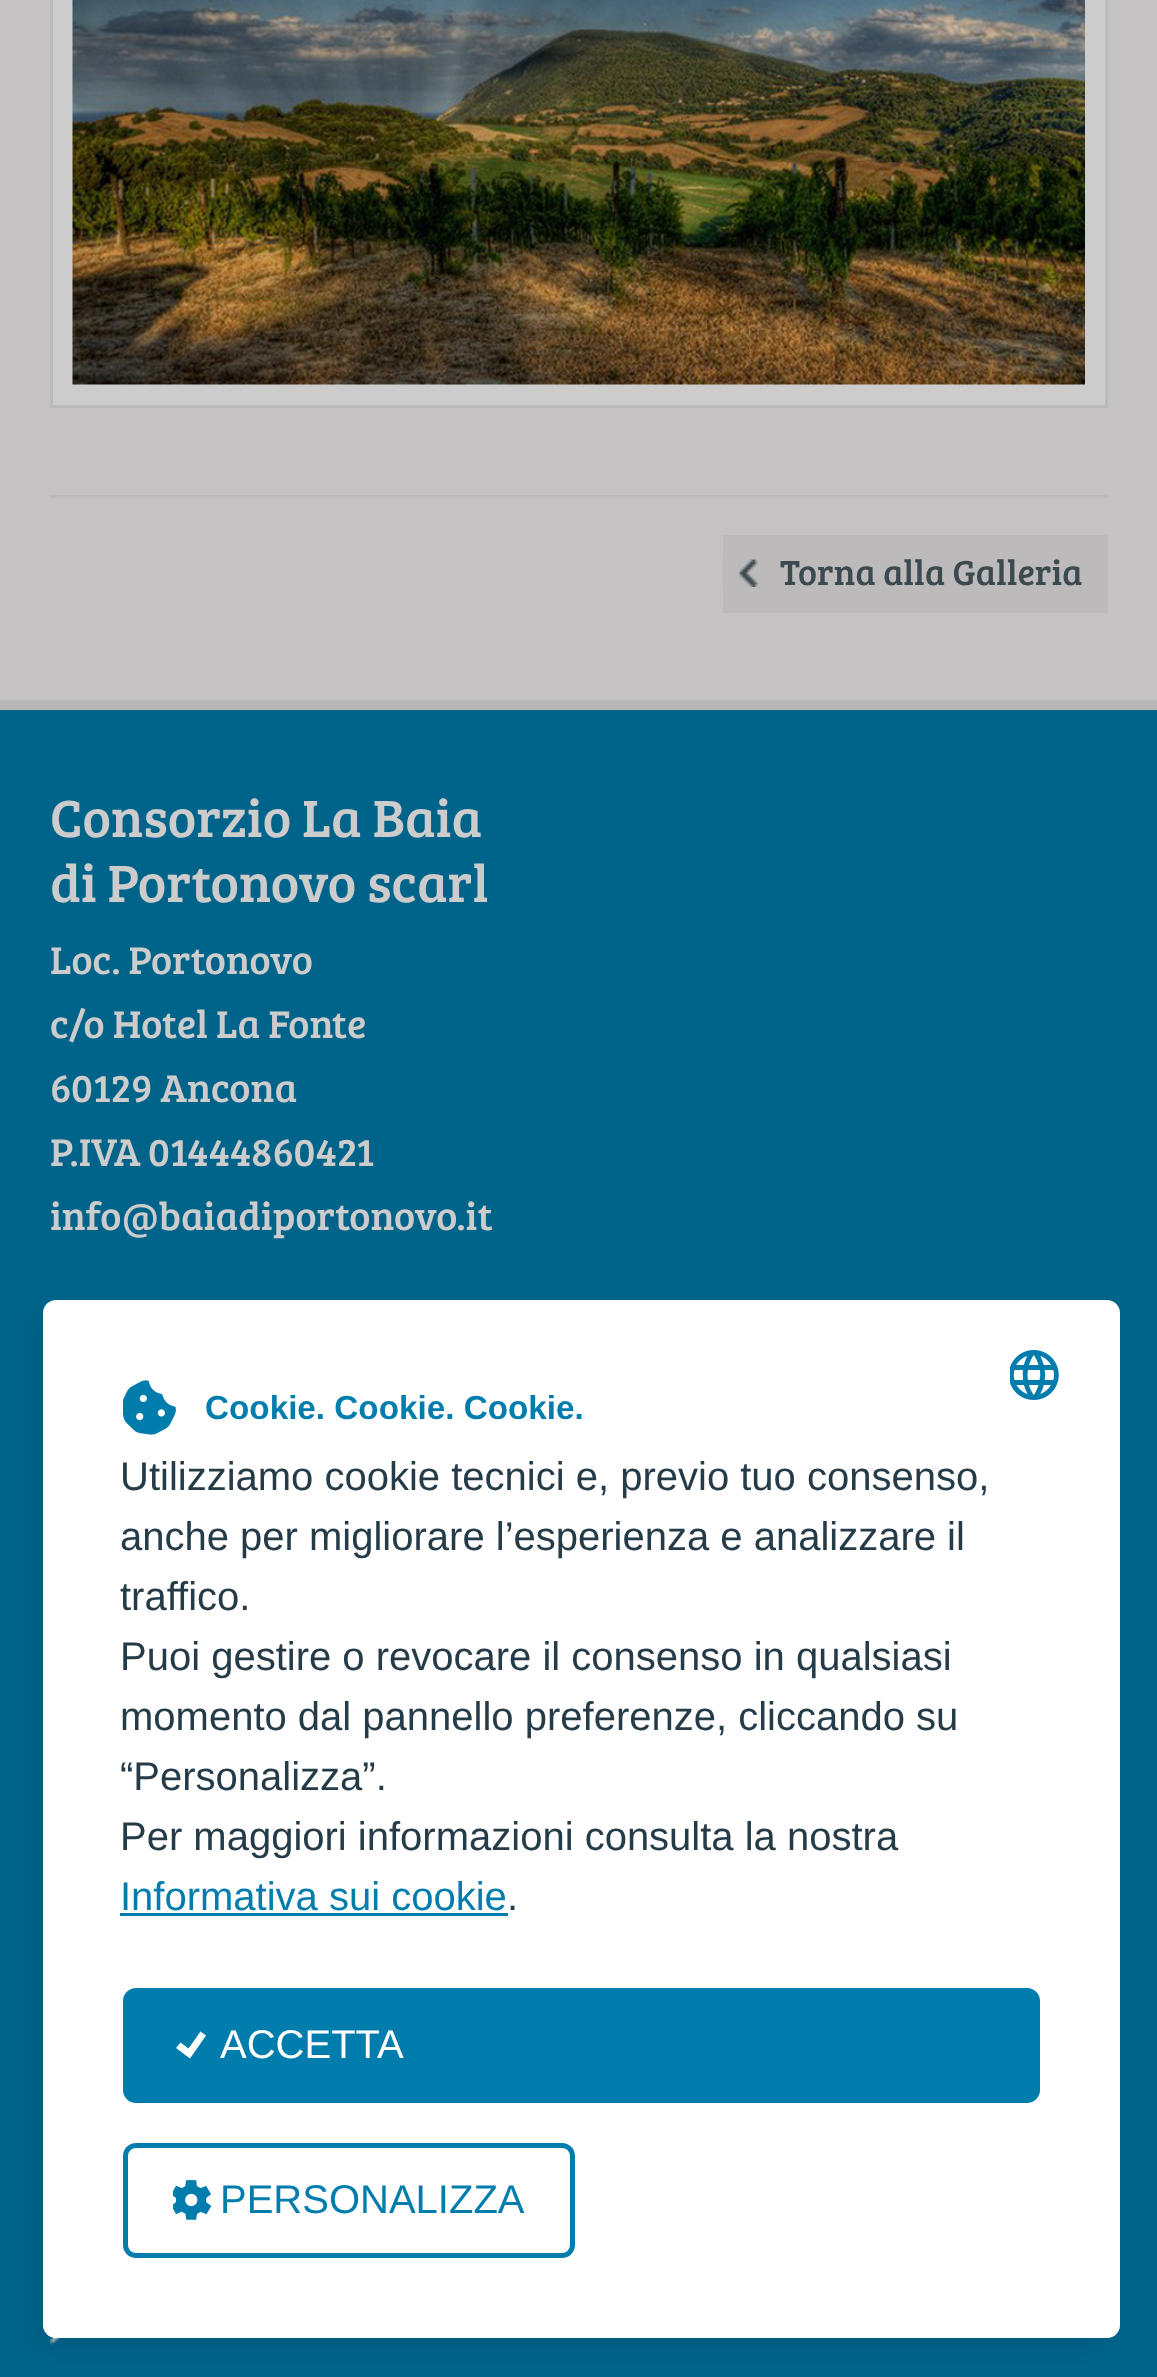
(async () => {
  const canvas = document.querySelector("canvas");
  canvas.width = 1157;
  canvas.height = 2377;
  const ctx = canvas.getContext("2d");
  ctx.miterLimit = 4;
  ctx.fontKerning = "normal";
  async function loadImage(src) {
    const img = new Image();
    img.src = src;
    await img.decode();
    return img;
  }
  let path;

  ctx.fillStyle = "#c4c2c3";
  ctx.fillRect(0, 0, 1157, 2377);
  ctx.fillStyle = "#bcbabb";
  ctx.fillRect(50, 495, 1058, 3);
  ctx.fillStyle = "#cccccc";
  ctx.beginPath();
  ctx.rect(51.5, -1.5, 1055, 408);
  ctx.fill();
  ctx.strokeStyle = "#bababa";
  ctx.lineWidth = 3;
  ctx.stroke();
  ctx.drawImage(await loadImage("img/1.png"), 72, 0, 1013, 385);
  ctx.fillStyle = "#bcbabb";
  ctx.fillRect(723, 535, 385, 78);
  ctx.drawImage(await loadImage("img/2.png"), 722, 559, 36, 28);
  ctx.fillStyle = "#00648a";
  ctx.fillRect(0, 710, 1157, 1667);
  ctx.fillStyle = "#b7b7b7";
  ctx.fillRect(0, 700, 1157, 10);
  ctx.drawImage(await loadImage("img/3.png"), 50, 2337, 10, 8);
  ctx.save();
  path = new Path2D("M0 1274H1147V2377H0ZM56 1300H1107C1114 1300 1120 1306 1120 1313V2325C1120 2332 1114 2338 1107 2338H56C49 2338 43 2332 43 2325V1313C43 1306 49 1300 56 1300Z");
  ctx.clip(path, "evenodd");
  ctx.fillStyle = "rgba(0, 0, 0, 0.07)";
  ctx.filter = "blur(12.5px)";
  ctx.beginPath();
  ctx.roundRect(30, 1313, 1078, 1037, 13);
  ctx.fill();
  ctx.filter = "none";
  ctx.restore();
  ctx.fillStyle = "#ffffff";
  ctx.beginPath();
  ctx.roundRect(43, 1300, 1077, 1038, 13);
  ctx.fill();
  ctx.drawImage(await loadImage("img/4.png"), 1010, 1350, 49, 50);
  ctx.drawImage(await loadImage("img/5.png"), 123, 1380, 53, 55);
  ctx.fillStyle = "#007dad";
  ctx.fillRect(120, 1913, 388, 3);
  ctx.beginPath();
  ctx.roundRect(125.5, 1990.5, 912, 110, 10.5);
  ctx.fill();
  ctx.strokeStyle = "#007dad";
  ctx.lineWidth = 5;
  ctx.stroke();
  ctx.fillStyle = "#ffffff";
  path = new Path2D("M200.5 2031.5L188.5 2048.5L180.5 2042.5L176 2048L190 2058.5L206 2035.5Z");
  ctx.fill(path);
  ctx.beginPath();
  ctx.roundRect(125.5, 2145.5, 447, 110, 10.5);
  ctx.stroke();
  ctx.drawImage(await loadImage("img/6.png"), 173, 2180, 39, 40);
  ctx.font = "36px Bree Serif";
  ctx.fillStyle = "#3c494e";
  ctx.fillText("Torna alla Galleria", 780, 585);
  ctx.font = "54px Bree Serif";
  ctx.fillStyle = "#cccccc";
  ctx.fillText("Consorzio La Baia", 50, 837);
  ctx.fillText("di Portonovo scarl", 50, 902);
  ctx.font = "40px Bree Serif";
  for (const [text, x, y] of [
    ["Loc. Portonovo", 50, 974],
    ["c/o Hotel La Fonte", 50, 1038],
    ["60129 Ancona", 50, 1102],
    ["P.IVA 01444860421", 50, 1166],
    ["info@baiadiportonovo.it", 50, 1230],
  ]) {
    ctx.fillText(text, x, y);
  }
  ctx.font = "bold 33.25px Liberation Sans";
  ctx.fillStyle = "#007dad";
  ctx.fillText("Cookie. Cookie. Cookie.", 205, 1419);
  ctx.font = "40px Liberation Sans";
  ctx.fillStyle = "#253b48";
  for (const [text, x, y] of [
    ["Utilizziamo cookie tecnici e, previo tuo consenso,", 120, 1490],
    ["anche per migliorare l’esperienza e analizzare il", 120, 1550],
    ["traffico.", 120, 1610],
    ["Puoi gestire o revocare il consenso in qualsiasi", 120, 1670],
    ["momento dal pannello preferenze, cliccando su", 120, 1730],
    ["“Personalizza”.", 120, 1790],
    ["Per maggiori informazioni consulta la nostra", 120, 1850],
  ]) {
    ctx.fillText(text, x, y);
  }
  ctx.fillStyle = "#007dad";
  ctx.fillText("Informativa sui cookie", 120, 1910);
  ctx.fillStyle = "#253b48";
  ctx.fillText(".", 507, 1910);
  ctx.fillStyle = "#ffffff";
  ctx.fillText("ACCETTA", 220, 2058);
  ctx.fillStyle = "#007dad";
  ctx.fillText("PERSONALIZZA", 220, 2213);
})();
